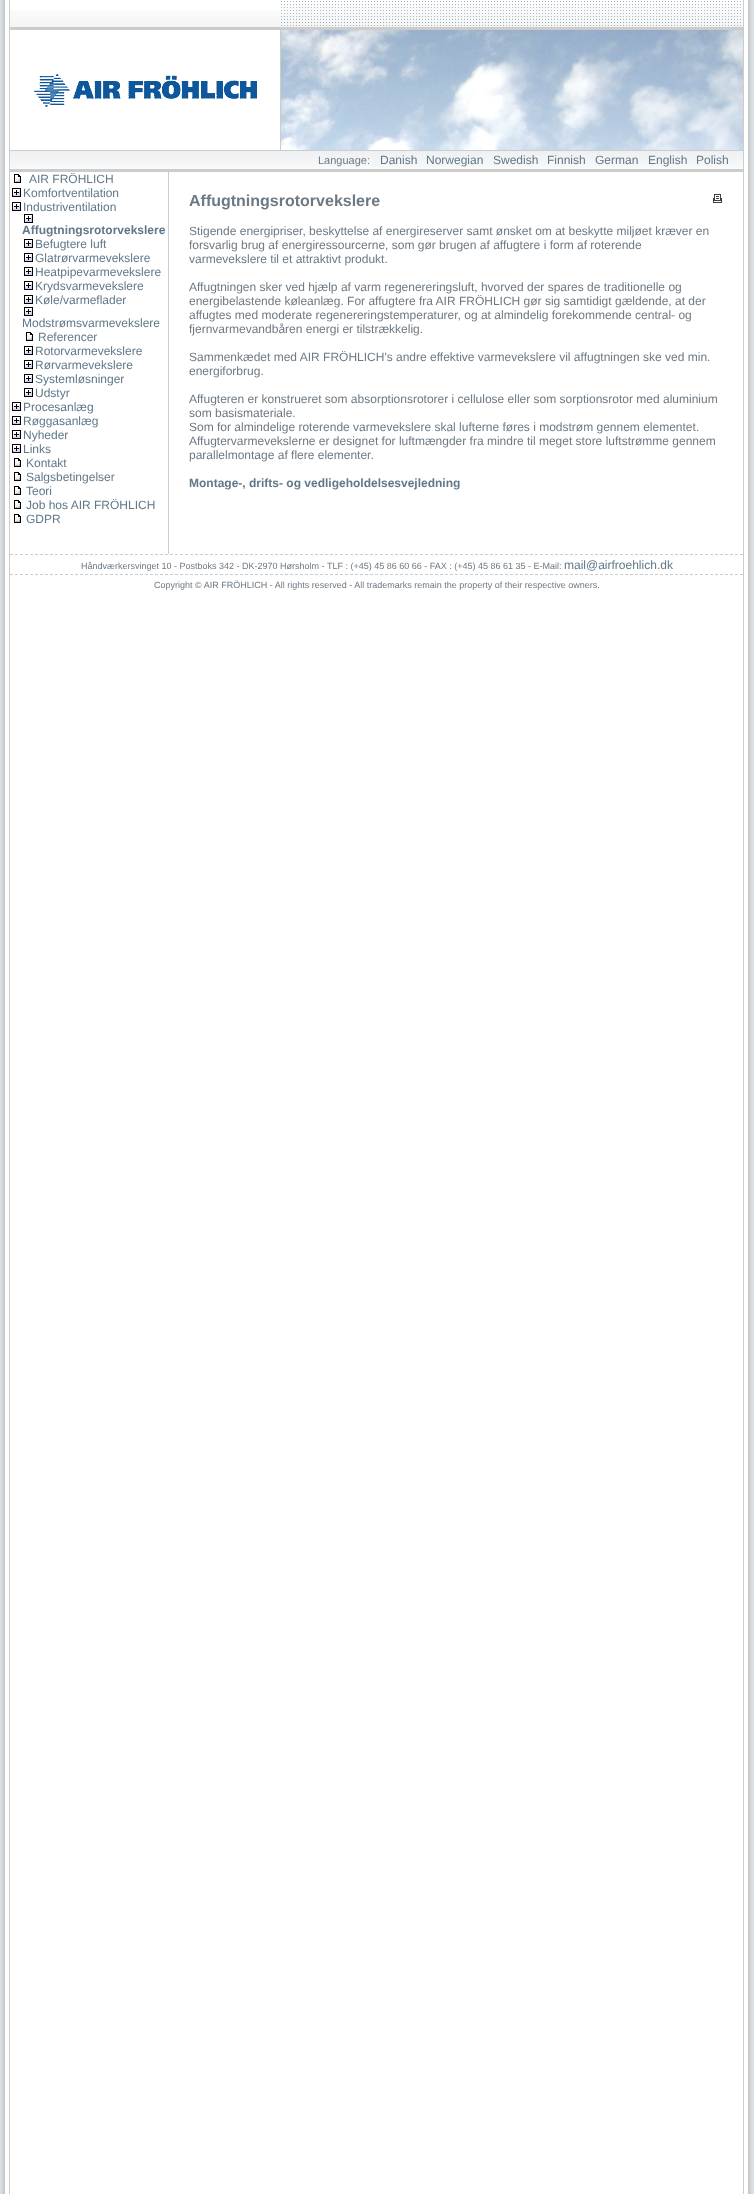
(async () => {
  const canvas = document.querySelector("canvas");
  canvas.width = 754;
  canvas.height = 2194;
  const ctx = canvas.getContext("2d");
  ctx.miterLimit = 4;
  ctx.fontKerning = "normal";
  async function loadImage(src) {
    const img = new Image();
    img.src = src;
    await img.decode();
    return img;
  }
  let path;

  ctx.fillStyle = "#ffffff";
  ctx.fillRect(0, 0, 754, 2194);
  ctx.drawImage(await loadImage("img/1.png"), 0, 0, 5, 2194);
  ctx.fillStyle = "#cccccc";
  ctx.fillRect(743, 0, 1, 2194);
  ctx.fillRect(9, 0, 1, 2194);
  ctx.drawImage(await loadImage("img/2.png"), 281, 1, 462, 26);
  ctx.drawImage(await loadImage("img/3.png"), 10, 10, 271, 17);
  for (const [x, y, w, h, color] of [
    [10, 27, 733, 3, "#cccccc"],
    [10, 150, 733, 1, "#cccccc"],
    [280, 30, 1, 121, "#cccccc"],
  ]) {
    ctx.fillStyle = color;
    ctx.fillRect(x, y, w, h);
  }
  ctx.drawImage(await loadImage("img/4.png"), 281, 30, 462, 120);
  ctx.drawImage(await loadImage("img/5.png"), 34, 74, 223, 33);
  ctx.drawImage(await loadImage("img/6.png"), 10, 151, 733, 18);
  ctx.fillRect(10, 169, 733, 3);
  ctx.fillRect(168, 172, 1, 382);
  ctx.drawImage(await loadImage("img/7.png"), 14, 174, 7, 9);
  ctx.drawImage(await loadImage("img/8.png"), 12, 188, 9, 9);
  ctx.drawImage(await loadImage("img/8.png"), 12, 202, 9, 9);
  ctx.drawImage(await loadImage("img/8.png"), 24, 214, 9, 9);
  ctx.drawImage(await loadImage("img/8.png"), 24, 239, 9, 9);
  ctx.drawImage(await loadImage("img/8.png"), 24, 253, 9, 9);
  ctx.drawImage(await loadImage("img/8.png"), 24, 267, 9, 9);
  ctx.drawImage(await loadImage("img/8.png"), 24, 281, 9, 9);
  ctx.drawImage(await loadImage("img/8.png"), 24, 295, 9, 9);
  ctx.drawImage(await loadImage("img/8.png"), 24, 307, 9, 9);
  ctx.drawImage(await loadImage("img/7.png"), 26, 332, 7, 9);
  ctx.drawImage(await loadImage("img/8.png"), 24, 346, 9, 9);
  ctx.drawImage(await loadImage("img/8.png"), 24, 360, 9, 9);
  ctx.drawImage(await loadImage("img/8.png"), 24, 374, 9, 9);
  ctx.drawImage(await loadImage("img/8.png"), 24, 388, 9, 9);
  ctx.drawImage(await loadImage("img/8.png"), 12, 402, 9, 9);
  ctx.drawImage(await loadImage("img/8.png"), 12, 416, 9, 9);
  ctx.drawImage(await loadImage("img/8.png"), 12, 430, 9, 9);
  ctx.drawImage(await loadImage("img/8.png"), 12, 444, 9, 9);
  ctx.drawImage(await loadImage("img/7.png"), 14, 458, 7, 9);
  ctx.drawImage(await loadImage("img/7.png"), 14, 472, 7, 9);
  ctx.drawImage(await loadImage("img/7.png"), 14, 486, 7, 9);
  ctx.drawImage(await loadImage("img/7.png"), 14, 500, 7, 9);
  ctx.drawImage(await loadImage("img/7.png"), 14, 514, 7, 9);
  ctx.drawImage(await loadImage("img/9.png"), 713, 194, 9, 9);
  path = new Path2D("M10 554.5H743");
  ctx.strokeStyle = "#cccccc";
  ctx.setLineDash([3, 2]);
  ctx.stroke(path);
  path = new Path2D("M10 574.5H743");
  ctx.stroke(path);
  ctx.drawImage(await loadImage("img/10.png"), 748, 0, 6, 2194);
  ctx.font = "11px Liberation Sans";
  ctx.fillStyle = "#6d7983";
  ctx.fillText("Language:", 318, 164);
  ctx.font = "12px Liberation Sans";
  ctx.fillStyle = "#607888";
  for (const [text, x, y] of [
    ["Danish", 380, 164],
    ["Norwegian", 426, 164],
    ["Swedish", 493, 164],
    ["Finnish", 547, 164],
    ["German", 595, 164],
    ["English", 648, 164],
    ["Polish", 696, 164],
    ["AIR FRÖHLICH", 29, 183],
    ["Komfortventilation", 23, 197],
    ["Industriventilation", 23, 211],
  ]) {
    ctx.fillText(text, x, y);
  }
  ctx.font = "bold 12px Liberation Sans";
  ctx.fillText("Affugtningsrotorvekslere", 22, 234);
  ctx.font = "12px Liberation Sans";
  for (const [text, x, y] of [
    ["Befugtere luft", 35, 248],
    ["Glatrørvarmevekslere", 35, 262],
    ["Heatpipevarmevekslere", 35, 276],
    ["Krydsvarmevekslere", 35, 290],
    ["Køle/varmeflader", 35, 304],
    ["Modstrømsvarmevekslere", 22, 327],
    ["Referencer", 38, 341],
    ["Rotorvarmevekslere", 35, 355],
    ["Rørvarmevekslere", 35, 369],
    ["Systemløsninger", 35, 383],
    ["Udstyr", 35, 397],
    ["Procesanlæg", 23, 411],
    ["Røggasanlæg", 23, 425],
    ["Nyheder", 23, 439],
    ["Links", 23, 453],
    ["Kontakt", 26, 467],
    ["Salgsbetingelser", 26, 481],
    ["Teori", 26, 495],
    ["Job hos AIR FRÖHLICH", 26, 509],
    ["GDPR", 26, 523],
  ]) {
    ctx.fillText(text, x, y);
  }
  ctx.font = "bold 16px Liberation Sans";
  ctx.fillStyle = "#6d7983";
  ctx.fillText("Affugtningsrotorvekslere", 189, 206);
  ctx.font = "12px Liberation Sans";
  for (const [text, x, y] of [
    ["Stigende energipriser, beskyttelse af energireserver samt ønsket om at beskytte miljøet kræver en", 189, 235],
    ["forsvarlig brug af energiressourcerne, som gør brugen af affugtere i form af roterende", 189, 249],
    ["varmevekslere til et attraktivt produkt.", 189, 263],
    ["Affugtningen sker ved hjælp af varm regenereringsluft, hvorved der spares de traditionelle og", 189, 291],
    ["energibelastende køleanlæg. For affugtere fra AIR FRÖHLICH gør sig samtidigt gældende, at der", 189, 305],
    ["affugtes med moderate regenereringstemperaturer, og at almindelig forekommende central- og", 189, 319],
    ["fjernvarmevandbåren energi er tilstrækkelig.", 189, 333],
    ["Sammenkædet med AIR FRÖHLICH's andre effektive varmevekslere vil affugtningen ske ved min.", 189, 361],
    ["energiforbrug.", 189, 375],
    ["Affugteren er konstrueret som absorptionsrotorer i cellulose eller som sorptionsrotor med aluminium", 189, 403],
    ["som basismateriale.", 189, 417],
    ["Som for almindelige roterende varmevekslere skal lufterne føres i modstrøm gennem elementet.", 189, 431],
    ["Affugtervarmevekslerne er designet for luftmængder fra mindre til meget store luftstrømme gennem", 189, 445],
    ["parallelmontage af flere elementer.", 189, 459],
  ]) {
    ctx.fillText(text, x, y);
  }
  ctx.font = "bold 12px Liberation Sans";
  ctx.fillStyle = "#607888";
  ctx.fillText("Montage-, drifts- og vedligeholdelsesvejledning", 189, 487);
  ctx.font = "9px Liberation Sans";
  ctx.fillStyle = "#6d7983";
  ctx.fillText("Håndværkersvinget 10 - Postboks 342 - DK-2970 Hørsholm - TLF : (+45) 45 86 60 66 - FAX : (+45) 45 86 61 35 - E-Mail:", 81, 569);
  ctx.font = "12px Liberation Sans";
  ctx.fillStyle = "#607888";
  ctx.fillText("mail@airfroehlich.dk", 564, 569);
  ctx.font = "9px Liberation Sans";
  ctx.fillStyle = "#6d7983";
  ctx.fillText("Copyright © AIR FRÖHLICH - All rights reserved - All trademarks remain the property of their respective owners.", 154, 588);
})();
